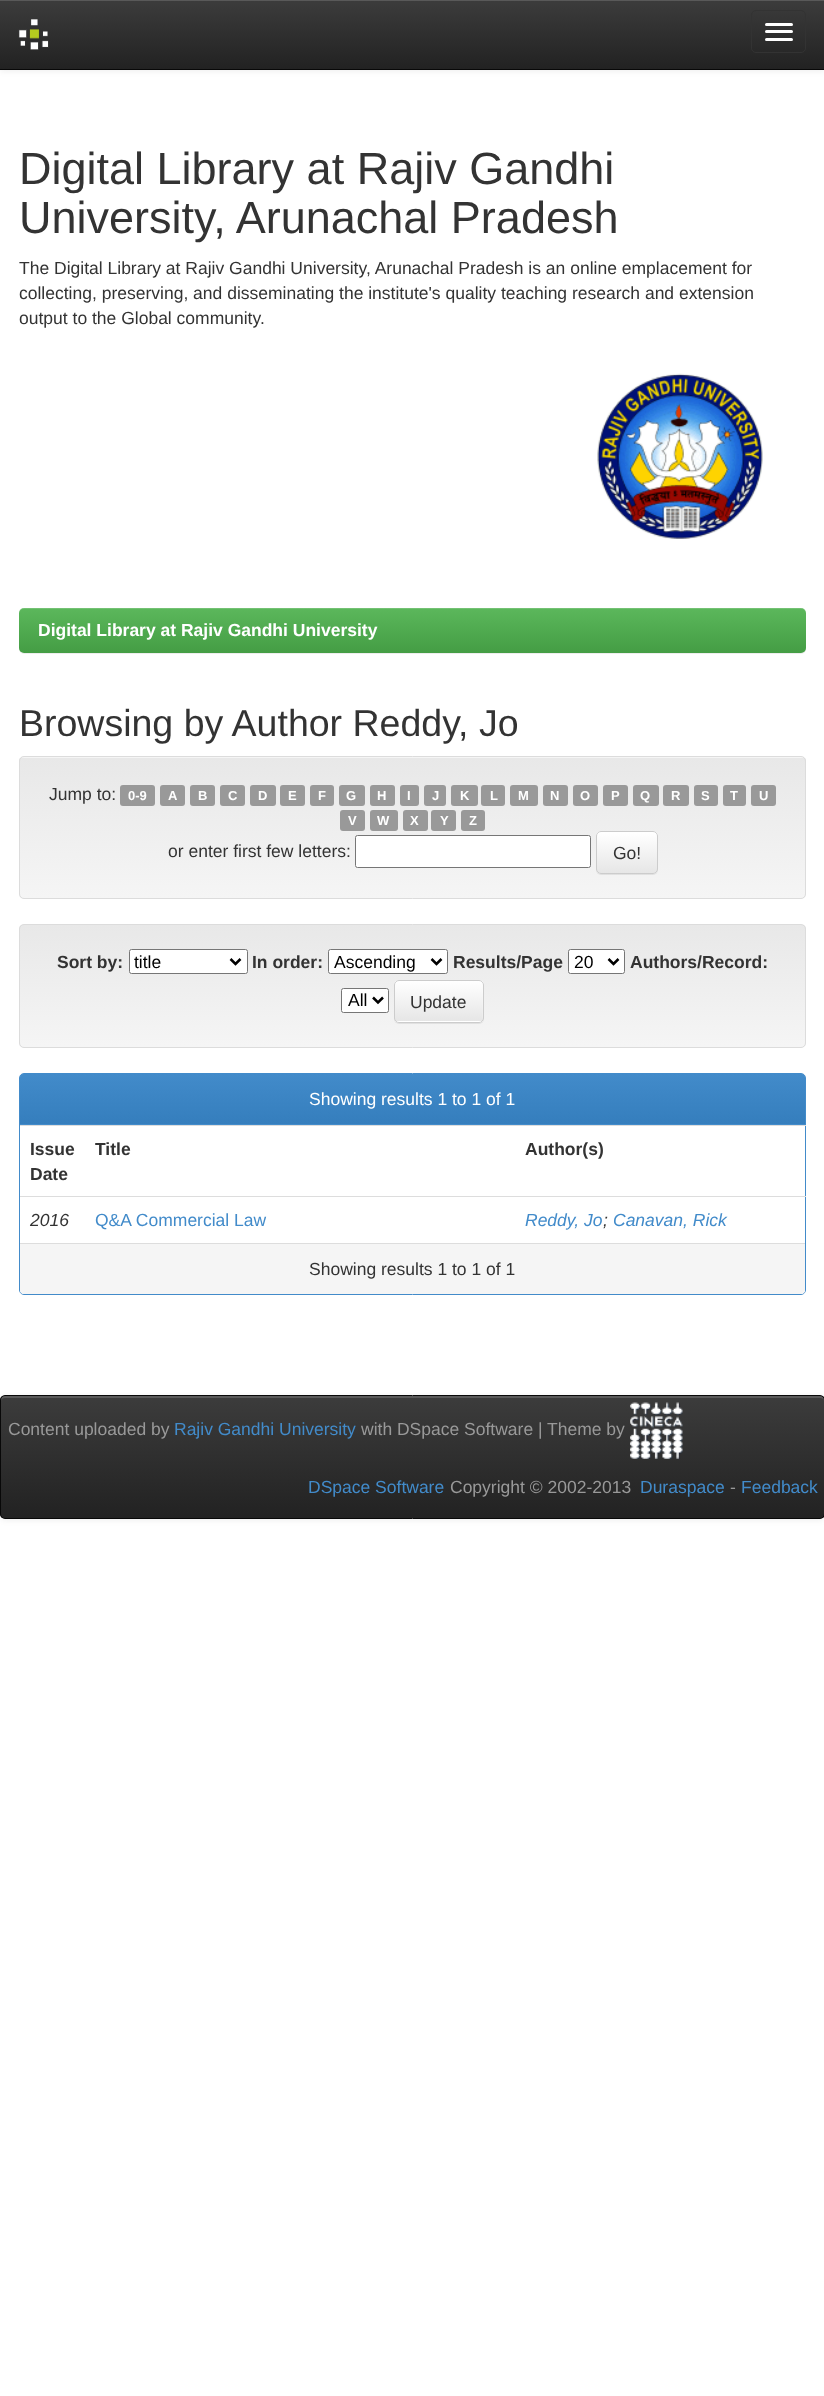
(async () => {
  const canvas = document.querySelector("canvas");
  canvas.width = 824;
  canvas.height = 2396;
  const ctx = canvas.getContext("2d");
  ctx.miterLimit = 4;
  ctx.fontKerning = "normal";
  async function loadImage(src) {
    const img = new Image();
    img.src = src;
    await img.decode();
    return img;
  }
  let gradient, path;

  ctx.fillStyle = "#ffffff";
  ctx.fillRect(0, 0, 824, 2396);
  ctx.fillStyle = "rgba(0, 0, 0, 0.07)";
  ctx.filter = "blur(3px)";
  ctx.beginPath();
  ctx.rect(0, 1, 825, 70);
  ctx.fill();
  ctx.filter = "none";
  gradient = ctx.createLinearGradient(413, 0, 413, 69);
  gradient.addColorStop(0, "#3c3c3c");
  gradient.addColorStop(1, "#222222");
  ctx.fillStyle = gradient;
  ctx.fillRect(0, 1, 824, 68);
  ctx.fillStyle = "#595959";
  ctx.fillRect(0, 0, 824, 1);
  ctx.fillStyle = "#080808";
  ctx.fillRect(0, 69, 824, 1);
  ctx.drawImage(await loadImage("img/1.png"), 18, 19, 31, 31);
  ctx.beginPath();
  ctx.roundRect(751.5, 10.5, 54, 42, 4.5);
  ctx.strokeStyle = "#333333";
  ctx.stroke();
  ctx.fillStyle = "#ffffff";
  ctx.beginPath();
  ctx.roundRect(765, 23, 28, 3, 1.5);
  ctx.fill();
  ctx.beginPath();
  ctx.roundRect(765, 30, 28, 3, 1.5);
  ctx.fill();
  ctx.beginPath();
  ctx.roundRect(765, 38, 28, 3, 1.5);
  ctx.fill();
  ctx.drawImage(await loadImage("img/2.png"), 597, 373, 166, 166);
  ctx.fillStyle = "rgba(0, 0, 0, 0.07)";
  ctx.filter = "blur(0.5px)";
  ctx.beginPath();
  ctx.roundRect(19, 609, 787, 45, 5);
  ctx.fill();
  ctx.filter = "none";
  gradient = ctx.createLinearGradient(413, 607, 413, 653);
  gradient.addColorStop(0, "#5cb85c");
  gradient.addColorStop(1, "#449d44");
  ctx.fillStyle = gradient;
  ctx.beginPath();
  ctx.roundRect(19, 608, 787, 45, 5);
  ctx.fill();
  ctx.fillStyle = "rgba(255, 255, 255, 0.15)";
  path = new Path2D("M24 609H801C804 609 806 611 806 614V613C806 610 804 608 801 608H24C21 608 19 610 19 613V614C19 611 21 609 24 609Z");
  ctx.fill(path);
  ctx.fillStyle = "#f5f5f5";
  ctx.beginPath();
  ctx.roundRect(19, 756, 787, 143, 5);
  ctx.fill();
  ctx.save();
  ctx.beginPath();
  ctx.roundRect(19, 756, 787, 143, 5);
  ctx.clip();
  gradient = ctx.createLinearGradient(413, 758, 413, 898);
  gradient.addColorStop(0, "#e8e8e8");
  gradient.addColorStop(1, "#f5f5f5");
  ctx.fillStyle = gradient;
  ctx.fillRect(19, 758, 787, 140);
  ctx.restore();
  ctx.beginPath();
  ctx.roundRect(19.5, 756.5, 786, 142, 4.5);
  ctx.strokeStyle = "#dcdcdc";
  ctx.stroke();
  ctx.fillStyle = "#999999";
  ctx.beginPath();
  ctx.roundRect(120, 785, 35, 21, 3);
  ctx.fill();
  ctx.beginPath();
  ctx.roundRect(160, 785, 25, 21, 3);
  ctx.fill();
  ctx.beginPath();
  ctx.roundRect(190, 785, 25, 21, 3);
  ctx.fill();
  ctx.beginPath();
  ctx.roundRect(220, 785, 25, 21, 3);
  ctx.fill();
  ctx.beginPath();
  ctx.roundRect(250, 785, 26, 21, 3);
  ctx.fill();
  ctx.beginPath();
  ctx.roundRect(280, 785, 25, 21, 3);
  ctx.fill();
  ctx.beginPath();
  ctx.roundRect(310, 785, 24, 21, 3);
  ctx.fill();
  ctx.beginPath();
  ctx.roundRect(339, 785, 26, 21, 3);
  ctx.fill();
  ctx.beginPath();
  ctx.roundRect(370, 785, 25, 21, 3);
  ctx.fill();
  ctx.beginPath();
  ctx.roundRect(400, 785, 19, 21, 3);
  ctx.fill();
  ctx.beginPath();
  ctx.roundRect(424, 785, 22, 21, 3);
  ctx.fill();
  ctx.beginPath();
  ctx.roundRect(451, 785, 27, 21, 3);
  ctx.fill();
  ctx.beginPath();
  ctx.roundRect(481, 785, 24, 21, 3);
  ctx.fill();
  ctx.beginPath();
  ctx.roundRect(510, 785, 28, 21, 3);
  ctx.fill();
  ctx.beginPath();
  ctx.roundRect(543, 785, 25, 21, 3);
  ctx.fill();
  ctx.beginPath();
  ctx.roundRect(573, 785, 25, 21, 3);
  ctx.fill();
  ctx.beginPath();
  ctx.roundRect(603, 785, 25, 21, 3);
  ctx.fill();
  ctx.beginPath();
  ctx.roundRect(633, 785, 26, 21, 3);
  ctx.fill();
  ctx.beginPath();
  ctx.roundRect(663, 785, 26, 21, 3);
  ctx.fill();
  ctx.beginPath();
  ctx.roundRect(694, 785, 24, 21, 3);
  ctx.fill();
  ctx.beginPath();
  ctx.roundRect(723, 785, 23, 21, 3);
  ctx.fill();
  ctx.beginPath();
  ctx.roundRect(751, 785, 25, 21, 3);
  ctx.fill();
  ctx.beginPath();
  ctx.roundRect(340, 810, 25, 21, 3);
  ctx.fill();
  ctx.beginPath();
  ctx.roundRect(370, 810, 28, 21, 3);
  ctx.fill();
  ctx.beginPath();
  ctx.roundRect(403, 810, 25, 21, 3);
  ctx.fill();
  ctx.beginPath();
  ctx.roundRect(431, 810, 25, 21, 3);
  ctx.fill();
  ctx.beginPath();
  ctx.roundRect(461, 810, 24, 21, 3);
  ctx.fill();
  ctx.fillStyle = "#ffffff";
  ctx.beginPath();
  ctx.roundRect(355.5, 835.5, 235, 32, 2);
  ctx.fill();
  ctx.strokeStyle = "#767676";
  ctx.stroke();
  ctx.fillStyle = "rgba(0, 0, 0, 0.07)";
  ctx.filter = "blur(0.5px)";
  ctx.beginPath();
  ctx.roundRect(596, 833, 62, 42, 5);
  ctx.fill();
  ctx.filter = "none";
  ctx.fillStyle = "#ffffff";
  ctx.beginPath();
  ctx.roundRect(596, 831, 62, 43, 5);
  ctx.fill();
  ctx.save();
  ctx.beginPath();
  ctx.roundRect(596, 831, 62, 43, 5);
  ctx.clip();
  gradient = ctx.createLinearGradient(627, 833, 627, 873);
  gradient.addColorStop(0, "#ffffff");
  gradient.addColorStop(1, "#e6e6e6");
  ctx.fillStyle = gradient;
  ctx.fillRect(596, 833, 62, 40);
  ctx.restore();
  ctx.beginPath();
  ctx.roundRect(596.5, 831.5, 61, 42, 4.5);
  ctx.strokeStyle = "#cccccc";
  ctx.stroke();
  ctx.fillStyle = "#f5f5f5";
  ctx.beginPath();
  ctx.roundRect(19, 924, 787, 124, 5);
  ctx.fill();
  ctx.save();
  ctx.beginPath();
  ctx.roundRect(19, 924, 787, 124, 5);
  ctx.clip();
  gradient = ctx.createLinearGradient(413, 925, 413, 1046);
  gradient.addColorStop(0, "#e8e8e8");
  gradient.addColorStop(1, "#f5f5f5");
  ctx.fillStyle = gradient;
  ctx.fillRect(19, 925, 787, 121);
  ctx.restore();
  ctx.beginPath();
  ctx.roundRect(19.5, 924.5, 786, 123, 4.5);
  ctx.strokeStyle = "#dcdcdc";
  ctx.stroke();
  ctx.fillStyle = "#ffffff";
  ctx.beginPath();
  ctx.roundRect(129.5, 949.5, 118, 24, 2);
  ctx.fill();
  ctx.strokeStyle = "#767676";
  ctx.stroke();
  path = new Path2D("M230.5 959L235.5 964L240.5 959");
  ctx.strokeStyle = "#000000";
  ctx.lineWidth = 2.5;
  ctx.stroke(path);
  ctx.beginPath();
  ctx.roundRect(328.5, 949.5, 119, 24, 2);
  ctx.fill();
  ctx.strokeStyle = "#767676";
  ctx.lineWidth = 1;
  ctx.stroke();
  path = new Path2D("M431.5 959L436.5 964L441.5 959");
  ctx.strokeStyle = "#000000";
  ctx.lineWidth = 2.5;
  ctx.stroke(path);
  ctx.beginPath();
  ctx.roundRect(568.5, 949.5, 56, 24, 2);
  ctx.fill();
  ctx.strokeStyle = "#767676";
  ctx.lineWidth = 1;
  ctx.stroke();
  path = new Path2D("M608.5 959L613.5 964L618.5 959");
  ctx.strokeStyle = "#000000";
  ctx.lineWidth = 2.5;
  ctx.stroke(path);
  ctx.beginPath();
  ctx.roundRect(341.5, 988.5, 47, 24, 2);
  ctx.fill();
  ctx.strokeStyle = "#767676";
  ctx.lineWidth = 1;
  ctx.stroke();
  path = new Path2D("M373 997.5L378 1002.5L383 997.5");
  ctx.strokeStyle = "#000000";
  ctx.lineWidth = 2.5;
  ctx.stroke(path);
  ctx.fillStyle = "rgba(0, 0, 0, 0.07)";
  ctx.filter = "blur(0.5px)";
  ctx.beginPath();
  ctx.roundRect(394, 981, 90, 43, 5);
  ctx.fill();
  ctx.filter = "none";
  ctx.fillStyle = "#ffffff";
  ctx.beginPath();
  ctx.roundRect(394, 980, 90, 43, 5);
  ctx.fill();
  ctx.save();
  ctx.beginPath();
  ctx.roundRect(394, 980, 90, 43, 5);
  ctx.clip();
  gradient = ctx.createLinearGradient(439, 981, 439, 1021);
  gradient.addColorStop(0, "#ffffff");
  gradient.addColorStop(1, "#e6e6e6");
  ctx.fillStyle = gradient;
  ctx.fillRect(394, 981, 90, 40);
  ctx.restore();
  ctx.fillStyle = "rgba(255, 255, 255, 0.15)";
  path = new Path2D("M399 982H466C485 982 482 979 482 997V1020C483 1019 483 1018 483 1017V985C483 983 481 981 479 981H399C397 981 395 983 395 985V986C395 984 397 982 399 982Z");
  ctx.fill(path);
  ctx.beginPath();
  ctx.roundRect(394.5, 980.5, 89, 42, 4.5);
  ctx.strokeStyle = "#cccccc";
  ctx.lineWidth = 1;
  ctx.stroke();
  ctx.beginPath();
  ctx.roundRect(19.5, 1073.5, 786, 221, 4.5);
  ctx.strokeStyle = "#428bca";
  ctx.stroke();
  ctx.fillStyle = "#428bca";
  ctx.beginPath();
  ctx.roundRect(20, 1074, 785, 51, [4, 4, 0, 0]);
  ctx.fill();
  gradient = ctx.createLinearGradient(413, 1074, 413, 1124);
  gradient.addColorStop(0, "#428bca");
  gradient.addColorStop(1, "#357ebd");
  ctx.fillStyle = gradient;
  ctx.beginPath();
  ctx.roundRect(20, 1074, 785, 50, [4, 4, 0, 0]);
  ctx.fill();
  ctx.fillStyle = "#dddddd";
  ctx.fillRect(20, 1125, 786, 1);
  ctx.fillRect(20, 1196, 786, 1);
  ctx.fillStyle = "#f5f5f5";
  ctx.beginPath();
  ctx.roundRect(20, 1243, 785, 51, [0, 0, 4, 4]);
  ctx.fill();
  ctx.fillStyle = "#dddddd";
  ctx.fillRect(20, 1243, 785, 1);
  ctx.fillStyle = "rgba(0, 0, 0, 0.07)";
  ctx.filter = "blur(3px)";
  ctx.beginPath();
  ctx.roundRect(0, 1396, 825, 124, 5);
  ctx.fill();
  ctx.filter = "none";
  ctx.save();
  ctx.beginPath();
  ctx.roundRect(0, 1395, 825, 124, 5);
  ctx.clip();
  gradient = ctx.createLinearGradient(413, 1396, 413, 1518);
  gradient.addColorStop(0, "#3c3c3c");
  gradient.addColorStop(1, "#222222");
  ctx.fillStyle = gradient;
  ctx.fillRect(0, 1396, 824, 122);
  ctx.restore();
  ctx.fillStyle = "#595959";
  path = new Path2D("M5 1398H820C822 1398 824 1399 824 1401C824 1398 823 1396 820 1396H5C2 1396 1 1398 1 1401C1 1399 3 1398 5 1398Z");
  ctx.fill(path);
  ctx.beginPath();
  ctx.roundRect(0.5, 1395.5, 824, 123, 4.5);
  ctx.strokeStyle = "#080808";
  ctx.stroke();
  ctx.drawImage(await loadImage("img/3.png"), 630, 1402, 53, 57);
  ctx.font = "45px Liberation Sans";
  ctx.fillStyle = "#333333";
  ctx.fillText("Digital Library at Rajiv Gandhi", 19, 184);
  ctx.fillText("University, Arunachal Pradesh", 19, 233);
  ctx.font = "17.5px Liberation Sans";
  for (const [text, x, y] of [
    ["The Digital Library at Rajiv Gandhi University, Arunachal Pradesh is an online emplacement for", 19, 274],
    ["collecting, preserving, and disseminating the institute's quality teaching research and extension", 19, 299],
    ["output to the Global community.", 19, 324],
  ]) {
    ctx.fillText(text, x, y);
  }
  ctx.font = "bold 17.5px Liberation Sans";
  ctx.fillStyle = "#ffffff";
  ctx.fillText("Digital Library at Rajiv Gandhi University", 38, 636);
  ctx.font = "37.5px Liberation Sans";
  ctx.fillStyle = "#333333";
  ctx.fillText("Browsing by Author Reddy, Jo", 19, 736);
  ctx.font = "17.5px Liberation Sans";
  ctx.fillText("Jump to:", 49, 800);
  ctx.font = "bold 13px Liberation Sans";
  ctx.fillStyle = "#ffffff";
  for (const [text, x, y] of [
    ["0-9", 128, 800],
    ["A", 168, 800],
    ["B", 198, 800],
    ["C", 228, 800],
    ["D", 258, 800],
    ["E", 288, 800],
    ["F", 318, 800],
    ["G", 346, 800],
    ["H", 377, 800],
    ["I", 407, 800],
    ["J", 432, 800],
    ["K", 460, 800],
    ["L", 490, 800],
    ["M", 518, 800],
    ["N", 550, 800],
    ["O", 580, 800],
    ["P", 611, 800],
    ["Q", 640, 800],
    ["R", 671, 800],
    ["S", 701, 800],
    ["T", 730, 800],
    ["U", 759, 800],
    ["V", 348, 825],
    ["W", 377, 825],
    ["X", 410, 825],
    ["Y", 440, 825],
    ["Z", 469, 825],
  ]) {
    ctx.fillText(text, x, y);
  }
  ctx.font = "17.5px Liberation Sans";
  ctx.fillStyle = "#333333";
  ctx.fillText("or enter first few letters:", 168, 857);
  ctx.fillText("Go!", 613, 859);
  ctx.font = "bold 17.5px Liberation Sans";
  ctx.fillText("Sort by:", 57, 968);
  ctx.font = "17.5px Liberation Sans";
  ctx.fillStyle = "#000000";
  ctx.fillText("title", 134, 968);
  ctx.font = "bold 17.5px Liberation Sans";
  ctx.fillStyle = "#333333";
  ctx.fillText("In order:", 252, 968);
  ctx.font = "17.5px Liberation Sans";
  ctx.fillStyle = "#000000";
  ctx.fillText("Ascending", 334, 968);
  ctx.font = "bold 17.5px Liberation Sans";
  ctx.fillStyle = "#333333";
  ctx.fillText("Results/Page", 453, 968);
  ctx.font = "17.5px Liberation Sans";
  ctx.fillStyle = "#000000";
  ctx.fillText("20", 574, 968);
  ctx.font = "bold 17.5px Liberation Sans";
  ctx.fillStyle = "#333333";
  ctx.fillText("Authors/Record:", 630, 968);
  ctx.font = "17.5px Liberation Sans";
  ctx.fillStyle = "#000000";
  ctx.fillText("All", 348, 1006);
  ctx.fillStyle = "#333333";
  ctx.fillText("Update", 410, 1008);
  ctx.fillStyle = "#ffffff";
  ctx.fillText("Showing results 1 to 1 of 1", 309, 1105);
  ctx.font = "bold 17.5px Liberation Sans";
  ctx.fillStyle = "#333333";
  for (const [text, x, y] of [
    ["Issue", 30, 1155],
    ["Date", 30, 1180],
    ["Title", 95, 1155],
    ["Author(s)", 525, 1155],
  ]) {
    ctx.fillText(text, x, y);
  }
  ctx.font = "italic 17.5px Liberation Sans";
  ctx.fillText("2016", 30, 1226);
  ctx.font = "17.5px Liberation Sans";
  ctx.fillStyle = "#428bca";
  ctx.fillText("Q&A Commercial Law", 95, 1226);
  ctx.font = "italic 17.5px Liberation Sans";
  ctx.fillText("Reddy, Jo", 525, 1226);
  ctx.fillStyle = "#333333";
  ctx.fillText(";", 603, 1226);
  ctx.fillStyle = "#428bca";
  ctx.fillText("Canavan, Rick", 613, 1226);
  ctx.font = "17.5px Liberation Sans";
  ctx.fillStyle = "#333333";
  ctx.fillText("Showing results 1 to 1 of 1", 309, 1275);
  ctx.fillStyle = "#999999";
  ctx.fillText("Content uploaded by", 8, 1435);
  ctx.fillStyle = "#428bca";
  ctx.fillText("Rajiv Gandhi University", 174, 1435);
  ctx.fillStyle = "#999999";
  ctx.fillText("with DSpace Software |", 361, 1435);
  ctx.fillText("Theme by", 547, 1435);
  ctx.fillStyle = "#428bca";
  ctx.fillText("DSpace Software", 308, 1493);
  ctx.fillStyle = "#999999";
  ctx.fillText("Copyright © 2002-2013", 450, 1493);
  ctx.fillStyle = "#428bca";
  ctx.fillText("Duraspace", 640, 1493);
  ctx.fillStyle = "#999999";
  ctx.fillText("-", 730, 1493);
  ctx.fillStyle = "#428bca";
  ctx.fillText("Feedback", 741, 1493);
})();
